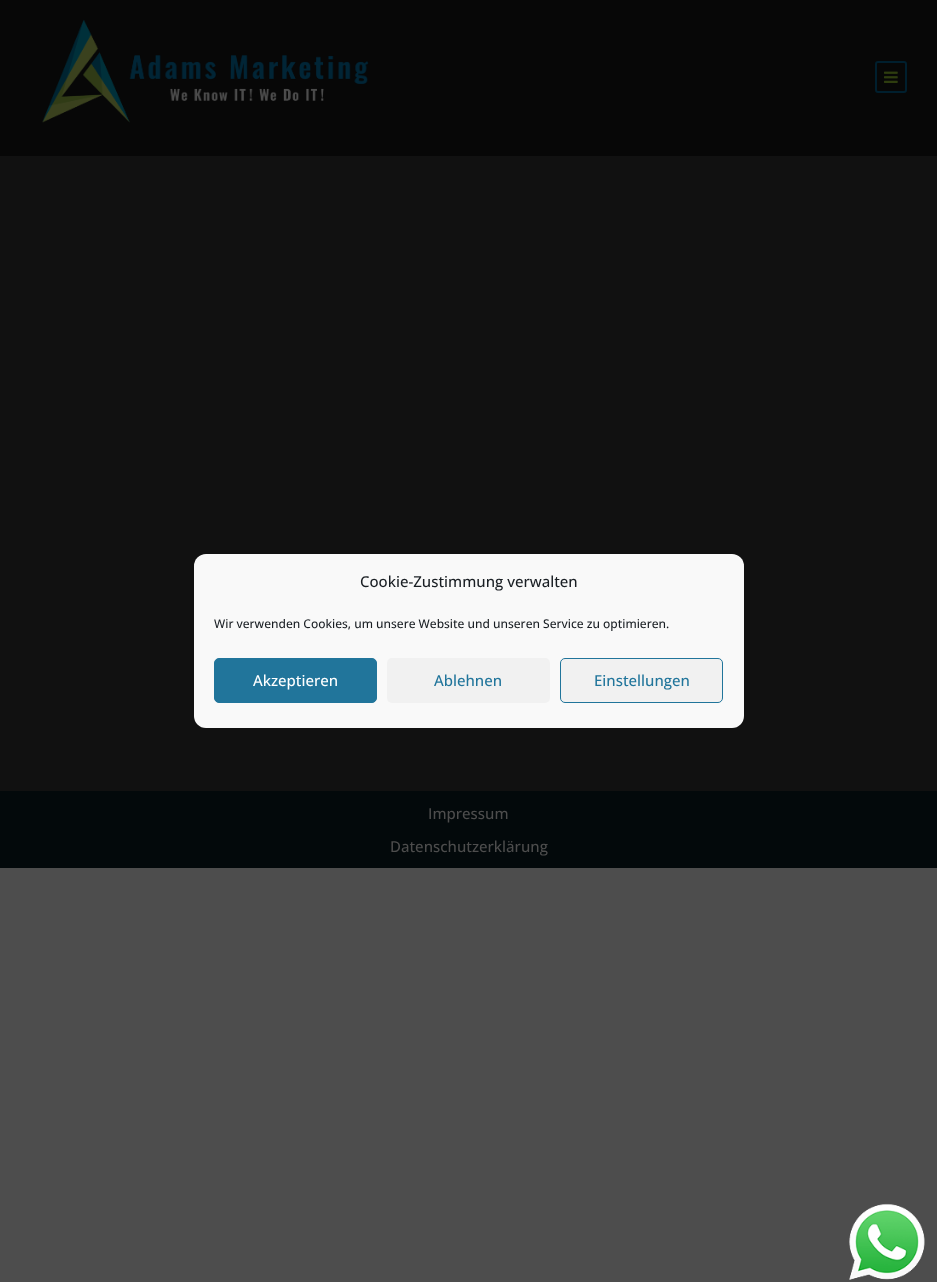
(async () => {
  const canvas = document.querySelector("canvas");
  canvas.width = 937;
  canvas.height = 1282;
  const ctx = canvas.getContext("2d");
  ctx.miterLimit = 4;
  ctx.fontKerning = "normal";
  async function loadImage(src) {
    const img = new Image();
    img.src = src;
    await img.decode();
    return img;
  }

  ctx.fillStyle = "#4d4d4d";
  ctx.fillRect(0, 0, 937, 1282);
  ctx.fillStyle = "#070707";
  ctx.fillRect(0, 0, 937, 156);
  ctx.drawImage(await loadImage("img/1.png"), 42, 19, 327, 104);
  ctx.beginPath();
  ctx.roundRect(876, 62, 30, 30, 2);
  ctx.strokeStyle = "#001f2e";
  ctx.lineWidth = 2;
  ctx.stroke();
  ctx.drawImage(await loadImage("img/2.png"), 884, 71, 14, 12);
  ctx.fillStyle = "#111111";
  ctx.fillRect(0, 156, 937, 635);
  ctx.fillStyle = "#f9f9f9";
  ctx.beginPath();
  ctx.roundRect(194, 554, 550, 174, 12);
  ctx.fill();
  ctx.fillStyle = "#21759b";
  ctx.beginPath();
  ctx.roundRect(214.5, 658.5, 162, 44, 4.5);
  ctx.fill();
  ctx.strokeStyle = "#21759b";
  ctx.lineWidth = 1;
  ctx.stroke();
  ctx.fillStyle = "#f1f1f1";
  ctx.beginPath();
  ctx.roundRect(387, 658, 163, 45, 5);
  ctx.fill();
  ctx.beginPath();
  ctx.roundRect(560.5, 658.5, 162, 44, 4.5);
  ctx.fill();
  ctx.stroke();
  ctx.fillStyle = "#03090b";
  ctx.fillRect(0, 791, 937, 77);
  ctx.drawImage(await loadImage("img/3.png"), 849, 1203, 76, 77);
  ctx.font = "500 15px Open Sans";
  ctx.fillStyle = "#191e23";
  ctx.fillText("Cookie-Zustimmung verwalten", 360, 587);
  ctx.font = "500 12px Open Sans";
  ctx.fillText("Wir verwenden Cookies, um unsere Website und unseren Service zu optimieren.", 214, 628);
  ctx.font = "500 15px Open Sans";
  ctx.fillStyle = "#ffffff";
  ctx.fillText("Akzeptieren", 253, 686);
  ctx.fillStyle = "#21759b";
  ctx.fillText("Ablehnen", 434, 686);
  ctx.fillText("Einstellungen", 594, 686);
  ctx.fillStyle = "#4d4d4d";
  ctx.fillText("Impressum", 428, 819);
  ctx.fillText("Datenschutzerklärung", 390, 852);
})();
